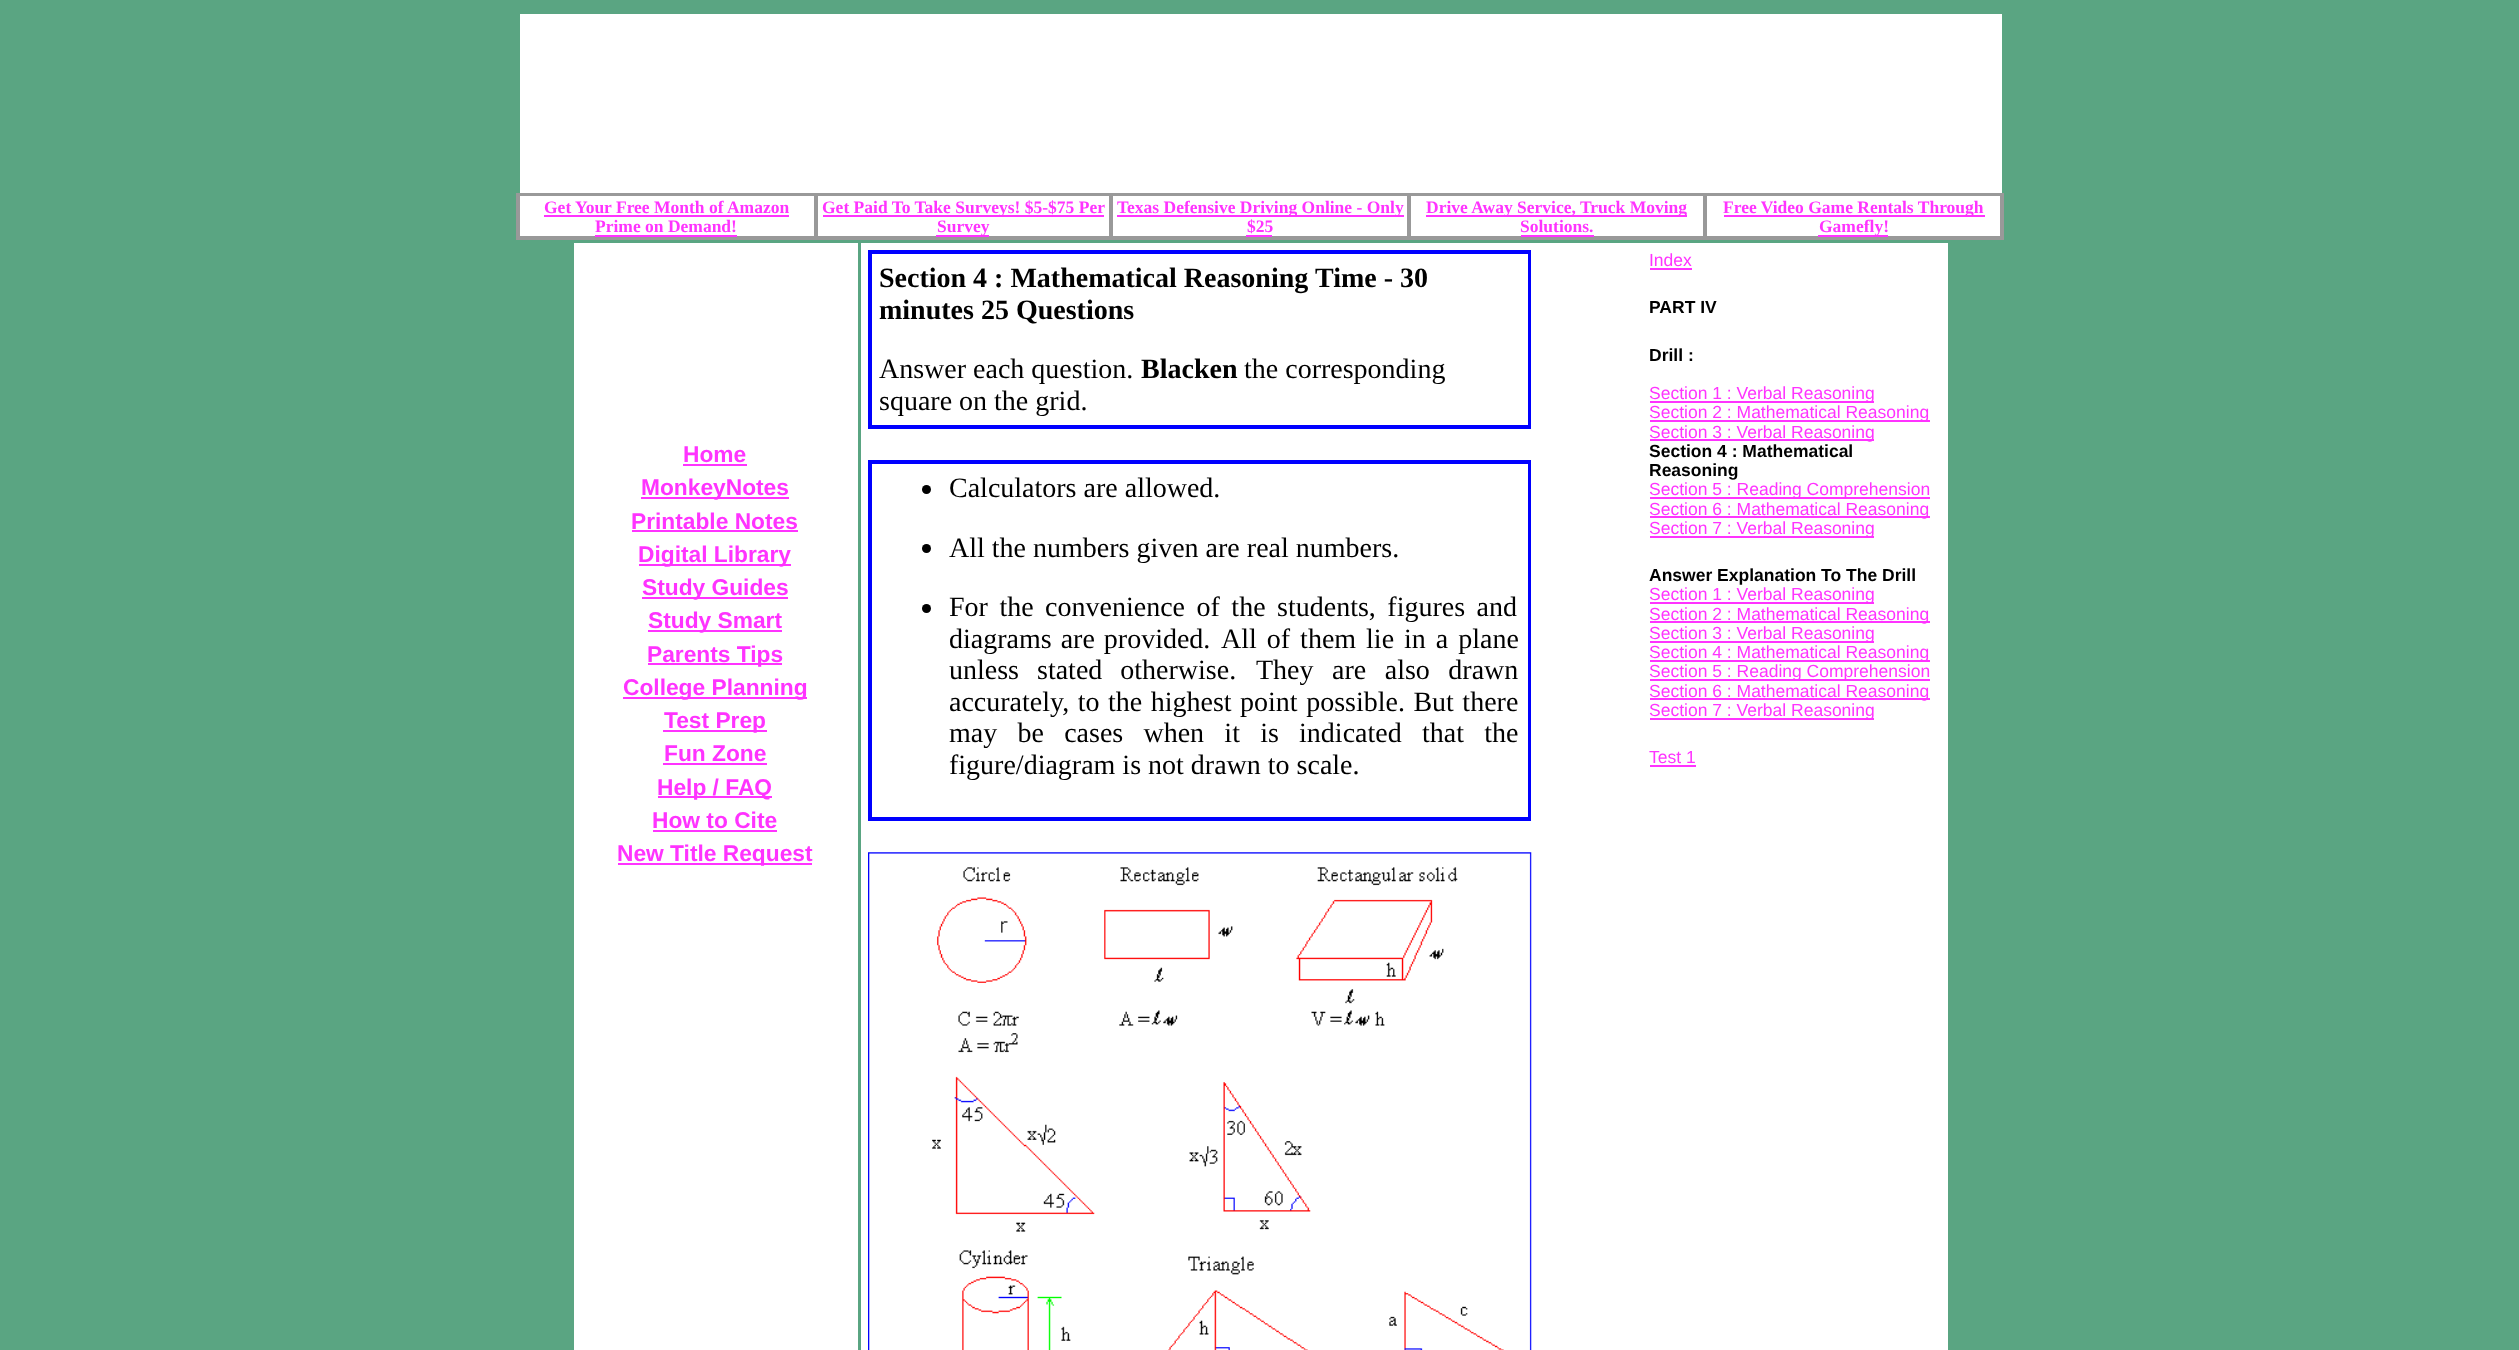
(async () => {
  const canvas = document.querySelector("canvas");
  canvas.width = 2519;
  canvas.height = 1350;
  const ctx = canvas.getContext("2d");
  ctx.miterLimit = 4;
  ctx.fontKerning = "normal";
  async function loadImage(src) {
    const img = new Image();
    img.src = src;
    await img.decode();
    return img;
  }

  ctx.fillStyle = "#5aa582";
  ctx.fillRect(0, 0, 2519, 1350);
  ctx.fillStyle = "#ffffff";
  ctx.fillRect(520, 14, 1482, 179);
  ctx.strokeStyle = "#999999";
  ctx.lineWidth = 2;
  ctx.strokeRect(517, 194, 1486, 45);
  ctx.fillRect(520, 196, 1480, 40);
  ctx.strokeRect(519, 195, 296, 42);
  ctx.fillStyle = "#ff33ff";
  ctx.fillRect(544, 215, 245, 2);
  ctx.fillRect(595, 235, 142, 2);
  ctx.strokeRect(817, 195, 293, 42);
  ctx.fillRect(823, 215, 281, 2);
  ctx.fillRect(936, 235, 53, 2);
  ctx.strokeRect(1112, 195, 296, 42);
  ctx.fillRect(1117, 215, 287, 2);
  ctx.fillRect(1246, 235, 26, 2);
  ctx.strokeRect(1410, 195, 294, 42);
  ctx.fillRect(1426, 215, 261, 2);
  ctx.fillRect(1521, 235, 73, 2);
  ctx.strokeRect(1706, 195, 295, 42);
  for (const [x, y, w, h, color] of [
    [1724, 215, 261, 2, "#ff33ff"],
    [1818, 235, 70, 2, "#ff33ff"],
    [574, 243, 284, 1107, "#ffffff"],
    [683, 464, 64, 2, "#ff33ff"],
    [641, 497, 148, 2, "#ff33ff"],
    [632, 530, 166, 2, "#ff33ff"],
    [639, 564, 152, 2, "#ff33ff"],
    [642, 597, 146, 2, "#ff33ff"],
    [648, 630, 134, 2, "#ff33ff"],
    [648, 663, 134, 2, "#ff33ff"],
    [623, 697, 184, 2, "#ff33ff"],
    [663, 730, 104, 2, "#ff33ff"],
    [663, 763, 104, 2, "#ff33ff"],
    [658, 796, 114, 2, "#ff33ff"],
    [653, 830, 124, 2, "#ff33ff"],
    [618, 863, 194, 2, "#ff33ff"],
    [861, 243, 1087, 1107, "#ffffff"],
  ]) {
    ctx.fillStyle = color;
    ctx.fillRect(x, y, w, h);
  }
  ctx.strokeStyle = "#0000ff";
  ctx.strokeRect(869, 251, 661, 177);
  ctx.strokeRect(871, 253, 658, 173);
  ctx.strokeRect(869, 461, 661, 359);
  ctx.strokeRect(871, 463, 658, 355);
  ctx.fillStyle = "#000000";
  ctx.beginPath();
  ctx.arc(926.5, 489.5, 4.5, 0, Math.PI * 2);
  ctx.fill();
  ctx.beginPath();
  ctx.arc(926.5, 548.5, 4.5, 0, Math.PI * 2);
  ctx.fill();
  ctx.beginPath();
  ctx.arc(926.5, 608.5, 4.5, 0, Math.PI * 2);
  ctx.fill();
  ctx.drawImage(await loadImage("img/1.png"), 868, 852, 664, 498);
  for (const [x, y, w, h, color] of [
    [1650, 268, 42, 2, "#ff33ff"],
    [1650, 401, 224, 2, "#ff33ff"],
    [1650, 420, 280, 2, "#ff33ff"],
    [1650, 439, 224, 2, "#ff33ff"],
    [1650, 497, 280, 2, "#ff33ff"],
    [1650, 516, 280, 2, "#ff33ff"],
    [1650, 536, 224, 2, "#ff33ff"],
    [1650, 602, 224, 2, "#ff33ff"],
    [1650, 621, 280, 2, "#ff33ff"],
    [1650, 641, 224, 2, "#ff33ff"],
    [1650, 660, 280, 2, "#ff33ff"],
    [1650, 679, 280, 2, "#ff33ff"],
    [1650, 698, 280, 2, "#ff33ff"],
    [1650, 718, 224, 2, "#ff33ff"],
    [1650, 765, 46, 2, "#ff33ff"],
  ]) {
    ctx.fillStyle = color;
    ctx.fillRect(x, y, w, h);
  }
  ctx.font = "bold 17.5px Liberation Serif";
  for (const [text, x, y] of [
    ["Get Your Free Month of Amazon", 544, 213],
    ["Prime on Demand!", 595, 232],
    ["Get Paid To Take Surveys! $5-$75 Per", 822, 213],
    ["Survey", 937, 232],
    ["Texas Defensive Driving Online - Only", 1117, 213],
    ["$25", 1247, 232],
    ["Drive Away Service, Truck Moving", 1426, 213],
    ["Solutions.", 1520, 232],
    ["Free Video Game Rentals Through", 1723, 213],
    ["Gamefly!", 1819, 232],
  ]) {
    ctx.fillText(text, x, y);
  }
  ctx.font = "bold 22.75px Liberation Sans";
  for (const [text, x, y] of [
    ["Home", 683, 462],
    ["MonkeyNotes", 641, 495],
    ["Printable Notes", 631, 529],
    ["Digital Library", 638, 562],
    ["Study Guides", 642, 595],
    ["Study Smart", 648, 628],
    ["Parents Tips", 647, 662],
    ["College Planning", 623, 695],
    ["Test Prep", 664, 728],
    ["Fun Zone", 664, 761],
    ["Help / FAQ", 657, 795],
    ["How to Cite", 652, 828],
    ["New Title Request", 617, 861],
  ]) {
    ctx.fillText(text, x, y);
  }
  ctx.font = "bold 28px Liberation Serif";
  ctx.fillStyle = "#000000";
  for (const [text, x, y] of [
    ["Section 4 : Mathematical Reasoning", 879, 287],
    ["Time - 30", 1315, 287],
    ["minutes 25 Questions", 879, 319],
  ]) {
    ctx.fillText(text, x, y);
  }
  ctx.font = "28px Liberation Serif";
  ctx.fillText("Answer each question.", 879, 378);
  ctx.font = "bold 28px Liberation Serif";
  ctx.fillText("Blacken", 1141, 378);
  ctx.font = "28px Liberation Serif";
  for (const [text, x, y] of [
    ["the corresponding", 1244, 378],
    ["square on the grid.", 879, 410],
    ["Calculators are allowed.", 949, 497],
    ["All the numbers given are real numbers.", 949, 557],
  ]) {
    ctx.fillText(text, x, y);
  }
  ctx.wordSpacing = "4.5px";
  ctx.fillText("For the convenience of the students, figures and", 949, 616);
  ctx.wordSpacing = "2px";
  ctx.fillText("diagrams are provided.", 949, 648);
  ctx.wordSpacing = "3px";
  ctx.fillText("All of them lie in a plane", 1221, 648);
  ctx.wordSpacing = "11px";
  ctx.fillText("unless stated otherwise.", 949, 679);
  ctx.wordSpacing = "11.5px";
  ctx.fillText("They are also drawn", 1256, 679);
  ctx.wordSpacing = "1.5px";
  ctx.fillText("accurately, to the highest point possible. But there", 949, 711);
  ctx.wordSpacing = "13.25px";
  ctx.fillText("may be cases when it is indicated that the", 949, 742);
  ctx.wordSpacing = "0px";
  ctx.fillText("figure/diagram is not drawn to scale.", 949, 774);
  ctx.font = "17.5px Liberation Sans";
  ctx.fillStyle = "#ff33ff";
  ctx.fillText("Index", 1649, 266);
  ctx.font = "bold 17.5px Liberation Sans";
  ctx.fillStyle = "#000000";
  ctx.fillText("PART IV", 1649, 313);
  ctx.fillText("Drill :", 1649, 361);
  ctx.font = "17.5px Liberation Sans";
  ctx.fillStyle = "#ff33ff";
  for (const [text, x, y] of [
    ["Section 1 : Verbal Reasoning", 1649, 399],
    ["Section 2 : Mathematical Reasoning", 1649, 418],
    ["Section 3 : Verbal Reasoning", 1649, 438],
  ]) {
    ctx.fillText(text, x, y);
  }
  ctx.font = "bold 17.5px Liberation Sans";
  ctx.fillStyle = "#000000";
  ctx.fillText("Section 4 : Mathematical", 1649, 457);
  ctx.fillText("Reasoning", 1649, 476);
  ctx.font = "17.5px Liberation Sans";
  ctx.fillStyle = "#ff33ff";
  for (const [text, x, y] of [
    ["Section 5 : Reading Comprehension", 1649, 495],
    ["Section 6 : Mathematical Reasoning", 1649, 515],
    ["Section 7 : Verbal Reasoning", 1649, 534],
  ]) {
    ctx.fillText(text, x, y);
  }
  ctx.font = "bold 17.5px Liberation Sans";
  ctx.fillStyle = "#000000";
  ctx.fillText("Answer Explanation To The Drill", 1649, 581);
  ctx.font = "17.5px Liberation Sans";
  ctx.fillStyle = "#ff33ff";
  for (const [text, x, y] of [
    ["Section 1 : Verbal Reasoning", 1649, 600],
    ["Section 2 : Mathematical Reasoning", 1649, 620],
    ["Section 3 : Verbal Reasoning", 1649, 639],
    ["Section 4 : Mathematical Reasoning", 1649, 658],
    ["Section 5 : Reading Comprehension", 1649, 677],
    ["Section 6 : Mathematical Reasoning", 1649, 697],
    ["Section 7 : Verbal Reasoning", 1649, 716],
    ["Test 1", 1649, 763],
  ]) {
    ctx.fillText(text, x, y);
  }
})();
